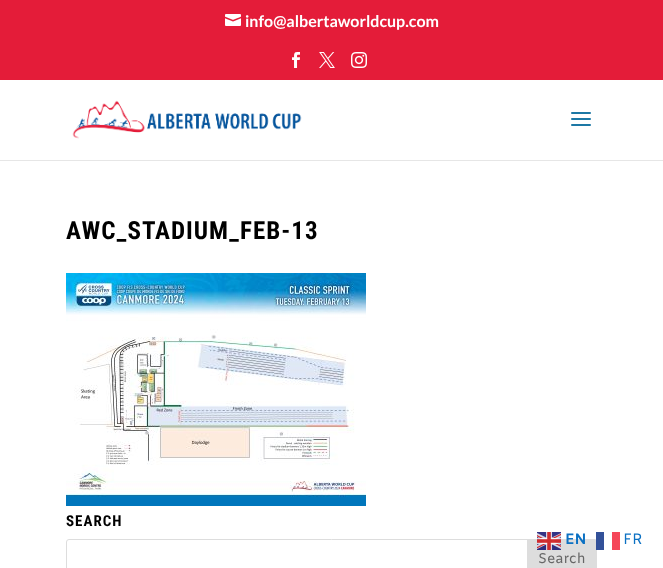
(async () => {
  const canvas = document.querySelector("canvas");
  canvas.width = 663;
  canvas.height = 568;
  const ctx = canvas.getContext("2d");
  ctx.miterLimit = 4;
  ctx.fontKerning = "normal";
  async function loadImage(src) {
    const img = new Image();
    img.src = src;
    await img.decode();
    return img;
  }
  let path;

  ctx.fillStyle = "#ffffff";
  ctx.fillRect(0, 0, 663, 568);
  ctx.fillStyle = "#e41c39";
  ctx.fillRect(0, 0, 663, 80);
  ctx.drawImage(await loadImage("img/1.png"), 225, 14, 16, 12);
  ctx.drawImage(await loadImage("img/2.png"), 292, 52, 8, 16);
  ctx.drawImage(await loadImage("img/3.png"), 319, 52, 16, 16);
  ctx.drawImage(await loadImage("img/4.png"), 351, 52, 16, 16);
  ctx.fillStyle = "#e6e6e6";
  ctx.fillRect(0, 160, 663, 1);
  ctx.drawImage(await loadImage("img/5.png"), 72, 100, 230, 39);
  ctx.drawImage(await loadImage("img/6.png"), 571, 112, 20, 14);
  ctx.drawImage(await loadImage("img/7.png"), 66, 273, 300, 233);
  ctx.beginPath();
  ctx.roundRect(66.5, 539.5, 530, 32, 2.5);
  ctx.strokeStyle = "#dddddd";
  ctx.stroke();
  ctx.fillStyle = "#dddddd";
  path = new Path2D("M527.5 539.5H594C595.5 539.5 596.5 540.5 596.5 542V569C596.5 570.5 595.5 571.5 594 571.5H527.5Z");
  ctx.fill(path);
  ctx.stroke(path);
  ctx.drawImage(await loadImage("img/8.png"), 537, 532, 24, 18);
  for (const [x, y, w, h, color] of [
    [596, 540, 1, 10, "rgba(255, 255, 255, 0.8)"],
    [596, 532, 8, 18, "rgba(0, 38, 127, 0.8)"],
    [612, 532, 8, 18, "#f54659"],
  ]) {
    ctx.fillStyle = color;
    ctx.fillRect(x, y, w, h);
  }
  ctx.font = "bold 16px Lato";
  ctx.fillStyle = "#ffffff";
  ctx.fillText("info@albertaworldcup.com", 245, 27);
  ctx.letterSpacing = "1px";
  ctx.font = "bold 25px Roboto Condensed";
  ctx.fillStyle = "#000000";
  ctx.fillText("AWC_STADIUM_FEB-13", 66, 239);
  ctx.font = "bold 15px Roboto Condensed";
  ctx.fillText("SEARCH", 66, 526);
  ctx.letterSpacing = "0px";
  ctx.font = "14px Amiko";
  ctx.fillStyle = "#666666";
  ctx.fillText("Search", 538, 563);
  ctx.font = "bold 15px Amiko";
  ctx.fillStyle = "#0c71c3";
  ctx.fillText("EN", 565, 544);
  ctx.font = "15px Amiko";
  ctx.fillText("FR", 623, 544);
})();
